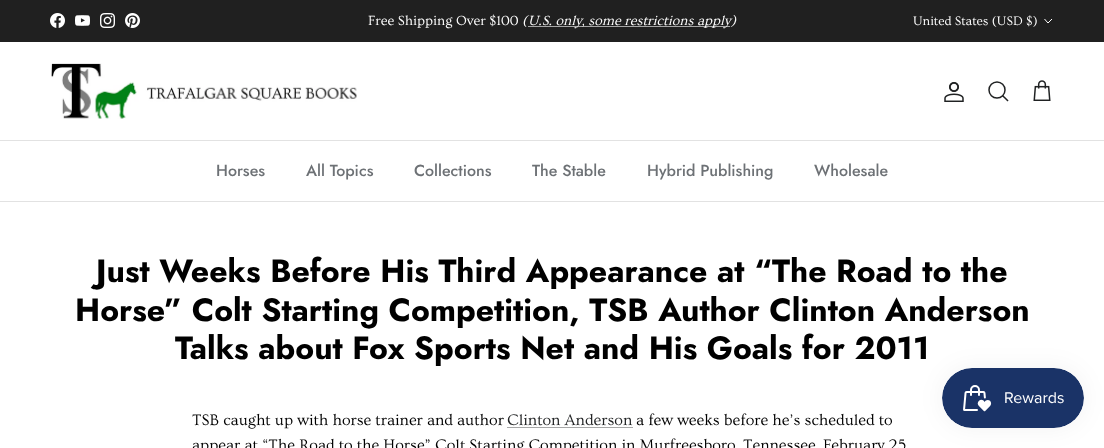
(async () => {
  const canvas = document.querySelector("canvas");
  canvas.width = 1104;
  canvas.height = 448;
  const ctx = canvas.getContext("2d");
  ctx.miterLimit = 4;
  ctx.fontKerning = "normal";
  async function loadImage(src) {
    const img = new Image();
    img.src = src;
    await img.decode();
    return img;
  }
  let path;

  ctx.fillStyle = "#ffffff";
  ctx.fillRect(0, 0, 1104, 448);
  ctx.fillStyle = "#202020";
  ctx.fillRect(0, 0, 1104, 42);
  ctx.drawImage(await loadImage("img/1.png"), 50, 13, 15, 15);
  ctx.drawImage(await loadImage("img/2.png"), 75, 15, 15, 11);
  ctx.drawImage(await loadImage("img/3.png"), 100, 13, 15, 15);
  ctx.drawImage(await loadImage("img/4.png"), 125, 13, 15, 15);
  path = new Path2D("M1052 19L1048 23L1044.5 19");
  ctx.strokeStyle = "#ffffff";
  ctx.stroke(path);
  ctx.fillStyle = "#e2e2e2";
  ctx.fillRect(0, 140, 1104, 1);
  ctx.drawImage(await loadImage("img/5.png"), 51, 63, 306, 56);
  ctx.drawImage(await loadImage("img/6.png"), 944, 82, 20, 20);
  ctx.beginPath();
  ctx.arc(997, 90, 8, 0, Math.PI * 2);
  ctx.strokeStyle = "#202223";
  ctx.lineWidth = 1.5;
  ctx.stroke();
  path = new Path2D("M1003 96L1007.5 100.5");
  ctx.lineCap = "square";
  ctx.stroke(path);
  ctx.drawImage(await loadImage("img/7.png"), 1033, 80, 18, 21);
  ctx.fillRect(0, 201, 1104, 1);
  ctx.fillStyle = "#a6a7a7";
  ctx.fillRect(507, 427, 126, 1);
  ctx.fillStyle = "rgba(0, 0, 0, 0.05)";
  ctx.filter = "blur(12.5px)";
  ctx.beginPath();
  ctx.roundRect(942, 368, 142, 60, 30);
  ctx.fill();
  ctx.filter = "none";
  ctx.drawImage(await loadImage("img/8.png"), 942, 368, 142, 60);
  ctx.font = "14px Ovo";
  ctx.fillStyle = "#ffffff";
  ctx.fillText("Free Shipping Over $100", 368, 25);
  ctx.font = "italic 14px Ovo";
  ctx.fillText("(", 522, 25);
  ctx.fillStyle = "#a6a6a6";
  ctx.fillRect(528, 26, 202, 1);
  ctx.fillStyle = "#ffffff";
  ctx.fillText("U.S. only, some restrictions apply)", 528, 25);
  ctx.font = "13px Ovo";
  ctx.fillText("United States (USD $)", 913, 25);
  ctx.font = "500 16px Jost";
  ctx.fillStyle = "#6d7175";
  for (const [text, x, y] of [
    ["Horses", 216, 176],
    ["All Topics", 306, 176],
    ["Collections", 414, 176],
    ["The Stable", 532, 176],
    ["Hybrid Publishing", 647, 176],
    ["Wholesale", 814, 176],
  ]) {
    ctx.fillText(text, x, y);
  }
  ctx.font = "bold 32px Jost";
  ctx.fillStyle = "#000000";
  for (const [text, x, y] of [
    ["Just Weeks Before His Third Appearance at “The Road to the", 96, 282],
    ["Horse” Colt Starting Competition, TSB Author Clinton Anderson", 75, 321],
    ["Talks about Fox Sports Net and His Goals for 2011", 175, 359],
  ]) {
    ctx.fillText(text, x, y);
  }
  ctx.font = "16px Ovo";
  ctx.fillText("TSB caught up with horse trainer and author", 192, 425);
  ctx.fillStyle = "#202223";
  ctx.fillText("Clinton Anderson", 507, 425);
  ctx.fillStyle = "#000000";
  ctx.fillText("a few weeks before he’s scheduled to", 636, 425);
  ctx.fillText("appear at “The Road to the Horse” Colt Starting Competition in Murfreesboro, Tennessee, February 25", 192, 450);
})();
